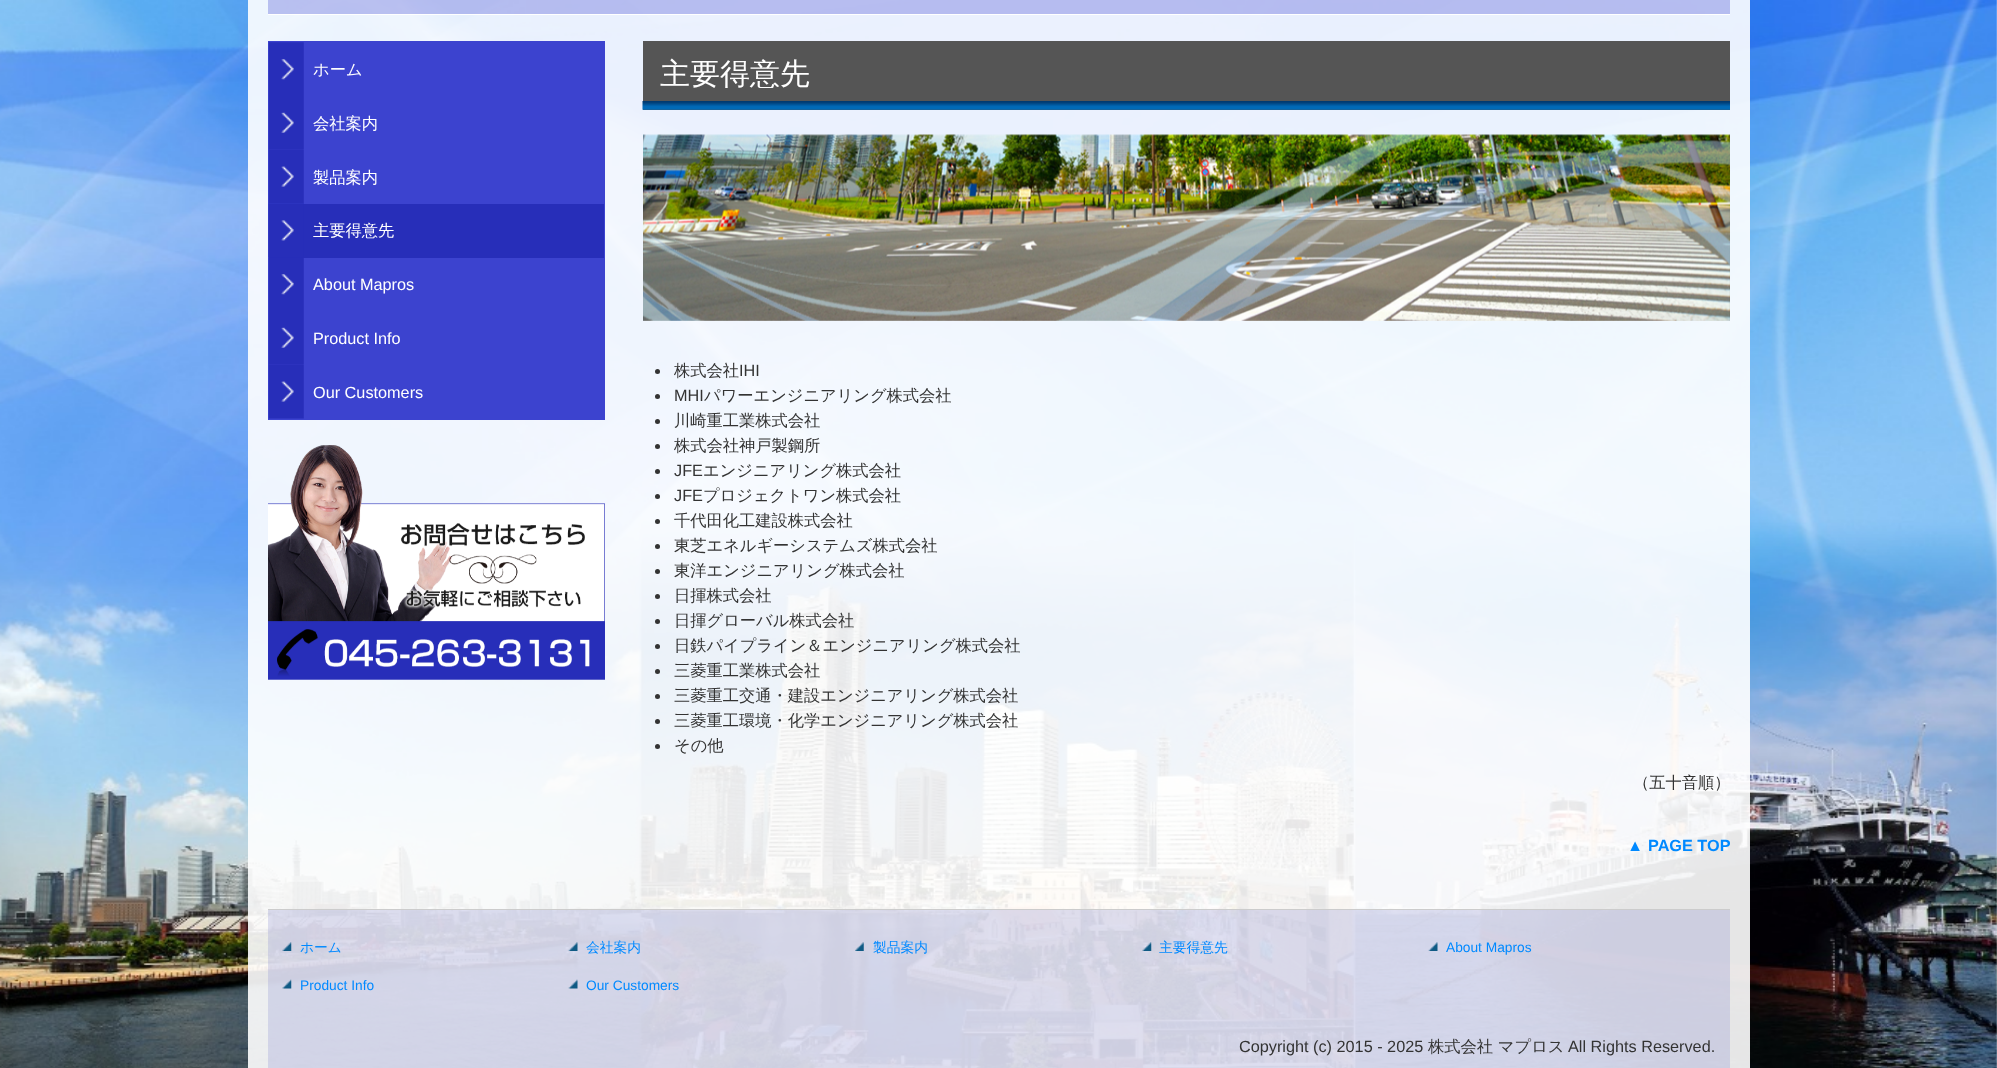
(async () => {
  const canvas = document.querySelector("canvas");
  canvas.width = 1997;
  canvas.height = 1068;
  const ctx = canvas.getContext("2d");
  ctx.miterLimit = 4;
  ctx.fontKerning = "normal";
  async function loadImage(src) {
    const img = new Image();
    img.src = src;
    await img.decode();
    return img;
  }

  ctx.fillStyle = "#ffffff";
  ctx.fillRect(0, 0, 1997, 1068);
  ctx.drawImage(await loadImage("img/1.png"), 0, 0, 1997, 1068);
  for (const [x, y, w, h, color] of [
    [248, 0, 1502, 1068, "rgba(255, 255, 255, 0.9)"],
    [268, 0, 1462, 14, "rgba(60, 67, 207, 0.3)"],
    [268, 14, 1462, 1, "#ffffff"],
    [268, 41, 337, 379, "#3c43cf"],
  ]) {
    ctx.fillStyle = color;
    ctx.fillRect(x, y, w, h);
  }
  ctx.drawImage(await loadImage("img/2.png"), 268, 42, 36, 54);
  ctx.drawImage(await loadImage("img/3.png"), 268, 96, 36, 54);
  ctx.drawImage(await loadImage("img/4.png"), 268, 150, 36, 54);
  ctx.fillStyle = "#272eb9";
  ctx.fillRect(269, 204, 335, 54);
  ctx.drawImage(await loadImage("img/5.png"), 268, 203, 36, 54);
  ctx.fillStyle = "#3139c4";
  ctx.fillRect(268, 204, 1, 53);
  ctx.drawImage(await loadImage("img/6.png"), 268, 257, 36, 54);
  ctx.drawImage(await loadImage("img/3.png"), 268, 311, 36, 54);
  ctx.drawImage(await loadImage("img/4.png"), 268, 365, 36, 54);
  ctx.drawImage(await loadImage("img/7.png"), 268, 445, 337, 235);
  ctx.fillStyle = "#555555";
  ctx.fillRect(643, 41, 1087, 69);
  ctx.drawImage(await loadImage("img/8.png"), 642, 101, 1088, 9);
  ctx.drawImage(await loadImage("img/9.png"), 643, 134, 1087, 187);
  ctx.fillStyle = "#333333";
  ctx.beginPath();
  ctx.arc(657.5, 371.5, 2.5, 0, Math.PI * 2);
  ctx.fill();
  ctx.beginPath();
  ctx.arc(657.5, 396.5, 2.5, 0, Math.PI * 2);
  ctx.fill();
  ctx.beginPath();
  ctx.arc(657.5, 421.5, 2.5, 0, Math.PI * 2);
  ctx.fill();
  ctx.beginPath();
  ctx.arc(657.5, 446.5, 2.5, 0, Math.PI * 2);
  ctx.fill();
  ctx.beginPath();
  ctx.arc(657.5, 471.5, 2.5, 0, Math.PI * 2);
  ctx.fill();
  ctx.beginPath();
  ctx.arc(657.5, 496.5, 2.5, 0, Math.PI * 2);
  ctx.fill();
  ctx.beginPath();
  ctx.arc(657.5, 521.5, 2.5, 0, Math.PI * 2);
  ctx.fill();
  ctx.beginPath();
  ctx.arc(657.5, 546.5, 2.5, 0, Math.PI * 2);
  ctx.fill();
  ctx.beginPath();
  ctx.arc(657.5, 571.5, 2.5, 0, Math.PI * 2);
  ctx.fill();
  ctx.beginPath();
  ctx.arc(657.5, 596.5, 2.5, 0, Math.PI * 2);
  ctx.fill();
  ctx.beginPath();
  ctx.arc(657.5, 621.5, 2.5, 0, Math.PI * 2);
  ctx.fill();
  ctx.beginPath();
  ctx.arc(657.5, 646.5, 2.5, 0, Math.PI * 2);
  ctx.fill();
  ctx.beginPath();
  ctx.arc(657.5, 671.5, 2.5, 0, Math.PI * 2);
  ctx.fill();
  ctx.beginPath();
  ctx.arc(657.5, 696.5, 2.5, 0, Math.PI * 2);
  ctx.fill();
  ctx.beginPath();
  ctx.arc(657.5, 721.5, 2.5, 0, Math.PI * 2);
  ctx.fill();
  ctx.beginPath();
  ctx.arc(657.5, 746.5, 2.5, 0, Math.PI * 2);
  ctx.fill();
  ctx.fillStyle = "rgba(148, 151, 213, 0.3)";
  ctx.fillRect(268, 910, 1462, 158);
  ctx.fillStyle = "#cccccc";
  ctx.fillRect(268, 909, 1462, 1);
  ctx.drawImage(await loadImage("img/10.png"), 282, 942, 10, 9);
  ctx.drawImage(await loadImage("img/11.png"), 568, 942, 10, 9);
  ctx.drawImage(await loadImage("img/12.png"), 855, 942, 9, 9);
  ctx.drawImage(await loadImage("img/13.png"), 1142, 942, 10, 9);
  ctx.drawImage(await loadImage("img/14.png"), 1428, 942, 10, 9);
  ctx.drawImage(await loadImage("img/15.png"), 282, 979, 10, 10);
  ctx.drawImage(await loadImage("img/16.png"), 568, 979, 10, 10);
  ctx.font = "500 16.25px WenQuanYi Zen Hei";
  ctx.fillStyle = "#ffffff";
  for (const [text, x, y] of [
    ["ホーム", 313, 75],
    ["会社案内", 313, 129],
    ["製品案内", 313, 183],
    ["主要得意先", 313, 236],
  ]) {
    ctx.fillText(text, x, y);
  }
  ctx.font = "16.25px Liberation Sans";
  for (const [text, x, y] of [
    ["About Mapros", 313, 290],
    ["Product Info", 313, 344],
    ["Our Customers", 313, 398],
  ]) {
    ctx.fillText(text, x, y);
  }
  ctx.font = "500 30px WenQuanYi Zen Hei";
  ctx.fillText("主要得意先", 660, 84);
  ctx.font = "500 16.25px WenQuanYi Zen Hei";
  ctx.fillStyle = "#333333";
  ctx.fillText("株式会社", 674, 376);
  ctx.font = "16.25px Liberation Sans";
  ctx.fillText("IHI", 739, 376);
  ctx.fillText("MHI", 674, 401);
  ctx.font = "500 16.25px WenQuanYi Zen Hei";
  for (const [text, x, y] of [
    ["パワーエンジニアリング株式会社", 704, 401],
    ["川崎重工業株式会社", 674, 426],
    ["株式会社神戸製鋼所", 674, 451],
  ]) {
    ctx.fillText(text, x, y);
  }
  ctx.font = "16.25px Liberation Sans";
  ctx.fillText("JFE", 674, 476);
  ctx.font = "500 16.25px WenQuanYi Zen Hei";
  ctx.fillText("エンジニアリング株式会社", 703, 476);
  ctx.font = "16.25px Liberation Sans";
  ctx.fillText("JFE", 674, 501);
  ctx.font = "500 16.25px WenQuanYi Zen Hei";
  for (const [text, x, y] of [
    ["プロジェクトワン株式会社", 703, 501],
    ["千代田化工建設株式会社", 674, 526],
    ["東芝エネルギーシステムズ株式会社", 674, 551],
    ["東洋エンジニアリング株式会社", 674, 576],
    ["日揮株式会社", 674, 601],
    ["日揮グローバル株式会社", 674, 626],
    ["日鉄パイプライン＆エンジニアリング株式会社", 674, 651],
    ["三菱重工業株式会社", 674, 676],
    ["三菱重工交通・建設エンジニアリング株式会社", 674, 701],
    ["三菱重工環境・化学エンジニアリング株式会社", 674, 726],
    ["その他", 674, 751],
    ["（五十音順）", 1633, 788],
  ]) {
    ctx.fillText(text, x, y);
  }
  ctx.font = "16.25px Liberation Sans";
  ctx.fillStyle = "#0089ff";
  ctx.fillText("▲", 1627, 851);
  ctx.font = "bold 16.25px Liberation Sans";
  ctx.fillText("PAGE TOP", 1648, 851);
  ctx.font = "500 13.75px WenQuanYi Zen Hei";
  for (const [text, x, y] of [
    ["ホーム", 300, 952],
    ["会社案内", 586, 952],
    ["製品案内", 873, 952],
    ["主要得意先", 1159, 952],
  ]) {
    ctx.fillText(text, x, y);
  }
  ctx.font = "13.75px Liberation Sans";
  for (const [text, x, y] of [
    ["About Mapros", 1446, 952],
    ["Product Info", 300, 990],
    ["Our Customers", 586, 990],
  ]) {
    ctx.fillText(text, x, y);
  }
  ctx.font = "16.25px Liberation Sans";
  ctx.fillStyle = "#333333";
  ctx.fillText("Copyright (c) 2015 - 2025", 1239, 1052);
  ctx.font = "500 16.25px WenQuanYi Zen Hei";
  ctx.fillText("株式会社 マプロス", 1428, 1052);
  ctx.font = "16.25px Liberation Sans";
  ctx.fillText("All Rights Reserved.", 1568, 1052);
})();
